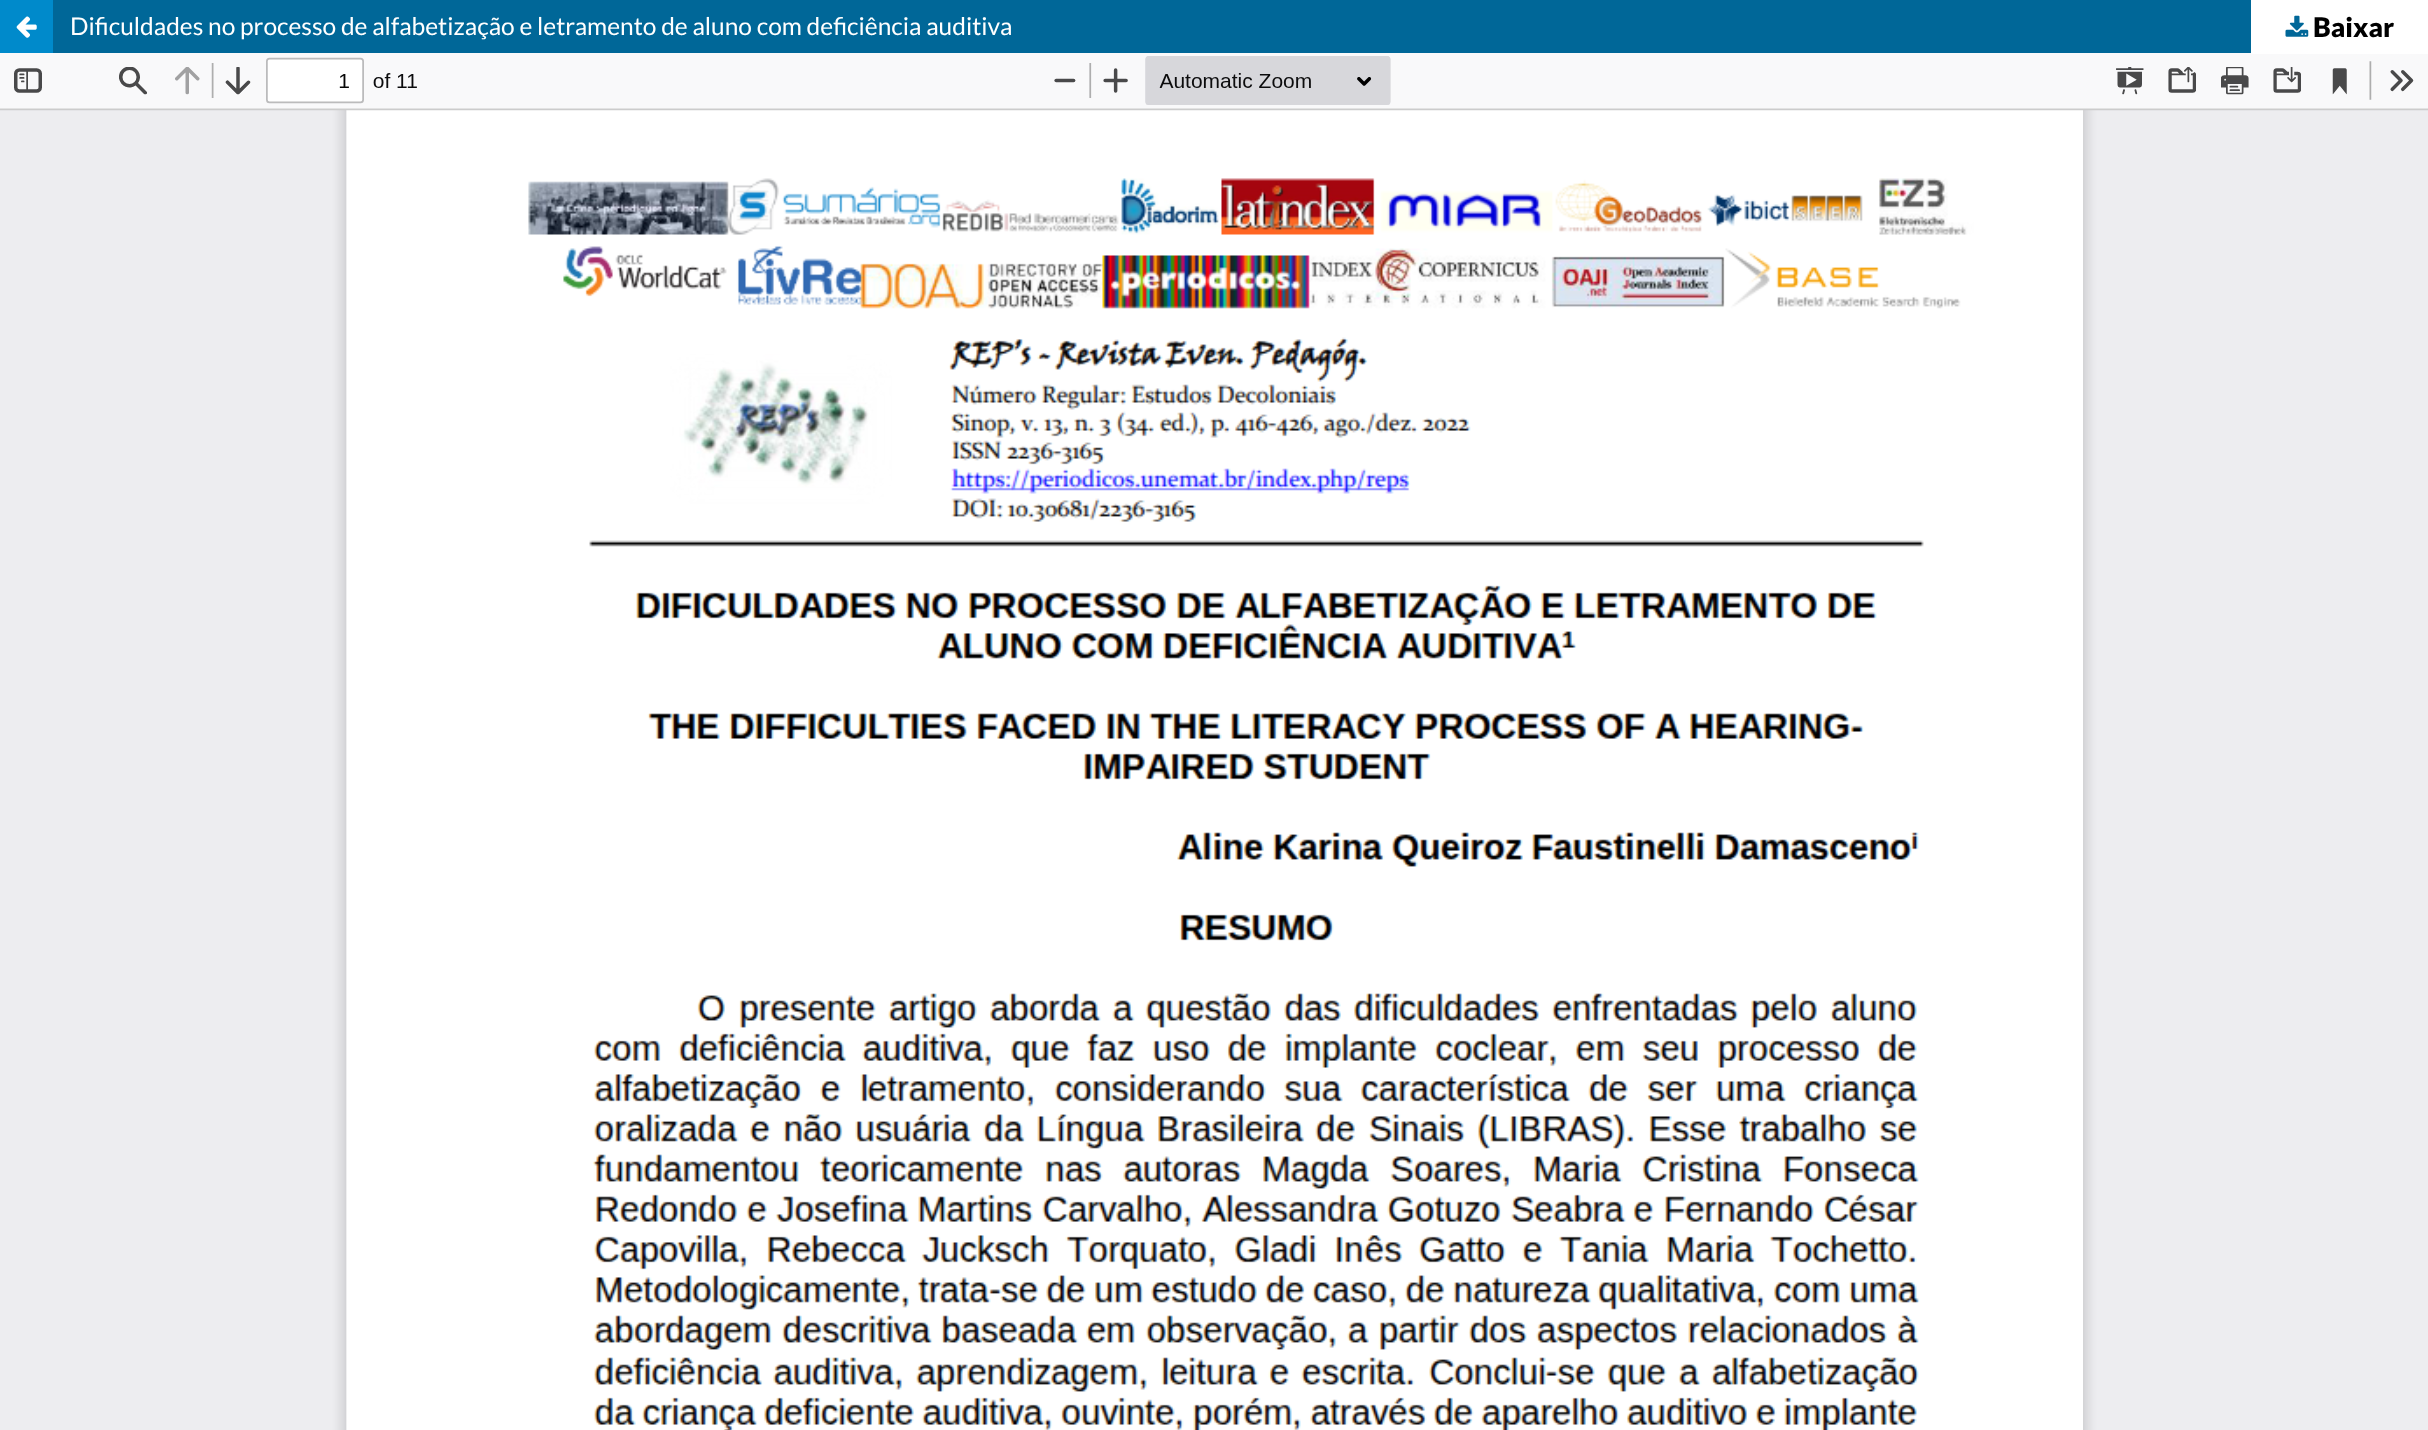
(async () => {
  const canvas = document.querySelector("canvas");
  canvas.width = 2428;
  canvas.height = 1430;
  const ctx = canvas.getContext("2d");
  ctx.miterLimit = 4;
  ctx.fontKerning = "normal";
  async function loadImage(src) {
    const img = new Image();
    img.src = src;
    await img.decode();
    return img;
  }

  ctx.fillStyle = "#ffffff";
  ctx.fillRect(0, 0, 2428, 1430);
  ctx.fillStyle = "#006798";
  ctx.fillRect(53, 0, 2198, 53);
  ctx.fillStyle = "#008acb";
  ctx.fillRect(0, 0, 53, 53);
  ctx.drawImage(await loadImage("img/1.png"), 16, 16, 21, 22);
  ctx.drawImage(await loadImage("img/3.png"), 0, 53, 2428, 1377);
  ctx.fillStyle = "#ffffff";
  ctx.fillRect(2251, 53, 177, 1);
  ctx.drawImage(await loadImage("img/2.png"), 2285, 15, 24, 22);
  ctx.font = "24.5px Lato";
  ctx.fillText("Dificuldades no processo de alfabetização e letramento de aluno com deficiência auditiva", 70, 35);
  ctx.font = "900 27px Lato";
  ctx.fillStyle = "#000000";
  ctx.fillText("Baixar", 2313, 37);
})();
